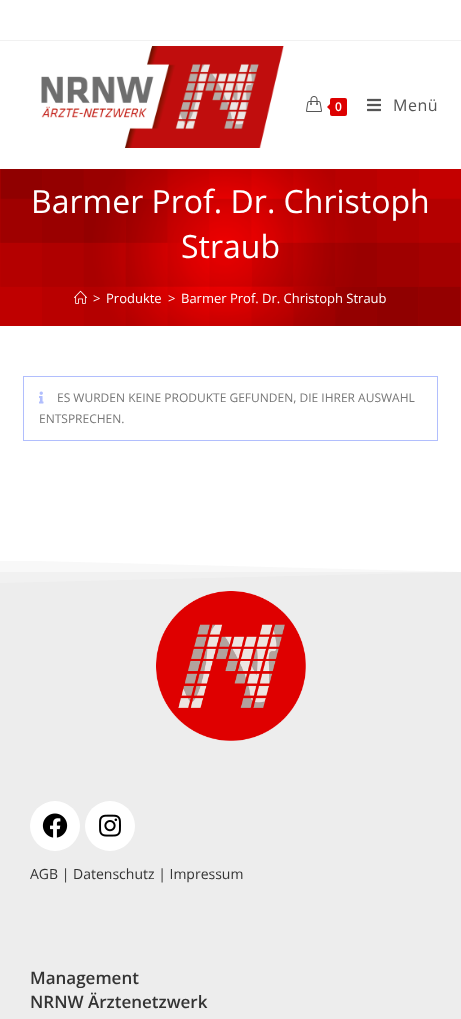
(async () => {
  const canvas = document.querySelector("canvas");
  canvas.width = 461;
  canvas.height = 1019;
  const ctx = canvas.getContext("2d");
  ctx.miterLimit = 4;
  ctx.fontKerning = "normal";
  async function loadImage(src) {
    const img = new Image();
    img.src = src;
    await img.decode();
    return img;
  }
  let path;

  ctx.fillStyle = "#ffffff";
  ctx.fillRect(0, 0, 461, 1019);
  ctx.fillStyle = "#f1f1f1";
  ctx.fillRect(0, 40, 461, 1);
  ctx.drawImage(await loadImage("img/1.png"), 41, 46, 243, 102);
  ctx.drawImage(await loadImage("img/2.png"), 306, 96, 16, 16);
  ctx.fillStyle = "#dd0000";
  ctx.beginPath();
  ctx.roundRect(330, 98, 17, 18, 2);
  ctx.fill();
  path = new Path2D("M332 102V112L327 107Z");
  ctx.fill(path);
  ctx.drawImage(await loadImage("img/3.png"), 367, 98, 14, 14);
  ctx.drawImage(await loadImage("img/4.png"), 0, 169, 461, 157);
  ctx.drawImage(await loadImage("img/5.png"), 74, 290, 13, 14);
  ctx.strokeStyle = "#b1befd";
  ctx.strokeRect(23.5, 376.5, 414, 64);
  ctx.drawImage(await loadImage("img/6.png"), 39, 391, 5, 13);
  ctx.fillStyle = "#ededed";
  ctx.fillRect(0, 572, 461, 447);
  ctx.fillStyle = "#f6f6f6";
  ctx.fillRect(0, 561, 461, 11);
  ctx.fillStyle = "#ffffff";
  path = new Path2D("M0 560H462V572Z");
  ctx.fill(path);
  ctx.fillStyle = "rgba(255, 255, 255, 0.25)";
  path = new Path2D("M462 560H0V583L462 572Z");
  ctx.fill(path);
  ctx.drawImage(await loadImage("img/7.png"), 156, 591, 150, 150);
  ctx.fillStyle = "#ffffff";
  ctx.beginPath();
  ctx.arc(55, 826, 25, 0, Math.PI * 2);
  ctx.fill();
  ctx.drawImage(await loadImage("img/8.png"), 42, 813, 26, 25);
  ctx.beginPath();
  ctx.arc(110, 826, 25, 0, Math.PI * 2);
  ctx.fill();
  ctx.drawImage(await loadImage("img/9.png"), 99, 814, 22, 23);
  ctx.letterSpacing = "0.5px";
  ctx.font = "600 12px Open Sans";
  ctx.fillText("0", 335, 111);
  ctx.font = "16px Open Sans";
  ctx.fillStyle = "#555555";
  ctx.fillText("Menü", 393, 111);
  ctx.letterSpacing = "0px";
  ctx.font = "32px Open Sans";
  ctx.fillStyle = "#ffffff";
  ctx.fillText("Barmer Prof. Dr. Christoph", 31, 213);
  ctx.fillText("Straub", 181, 258);
  ctx.font = "13px Open Sans";
  for (const [text, x, y] of [
    [">", 93, 303],
    ["Produkte", 106, 303],
    [">", 168, 303],
    ["Barmer Prof. Dr. Christoph Straub", 181, 303],
  ]) {
    ctx.fillText(text, x, y);
  }
  ctx.font = "12px Open Sans";
  ctx.fillStyle = "#777777";
  ctx.fillText("ES WURDEN KEINE PRODUKTE GEFUNDEN, DIE IHRER AUSWAHL", 57, 402);
  ctx.fillText("ENTSPRECHEN.", 39, 423);
  ctx.font = "14px Open Sans";
  ctx.fillStyle = "#333333";
  ctx.fillText("AGB | Datenschutz | Impressum", 30, 879);
  ctx.font = "600 17px Open Sans";
  ctx.fillText("Management", 30, 984);
  ctx.fillText("NRNW Ärztenetzwerk", 30, 1008);
})();
